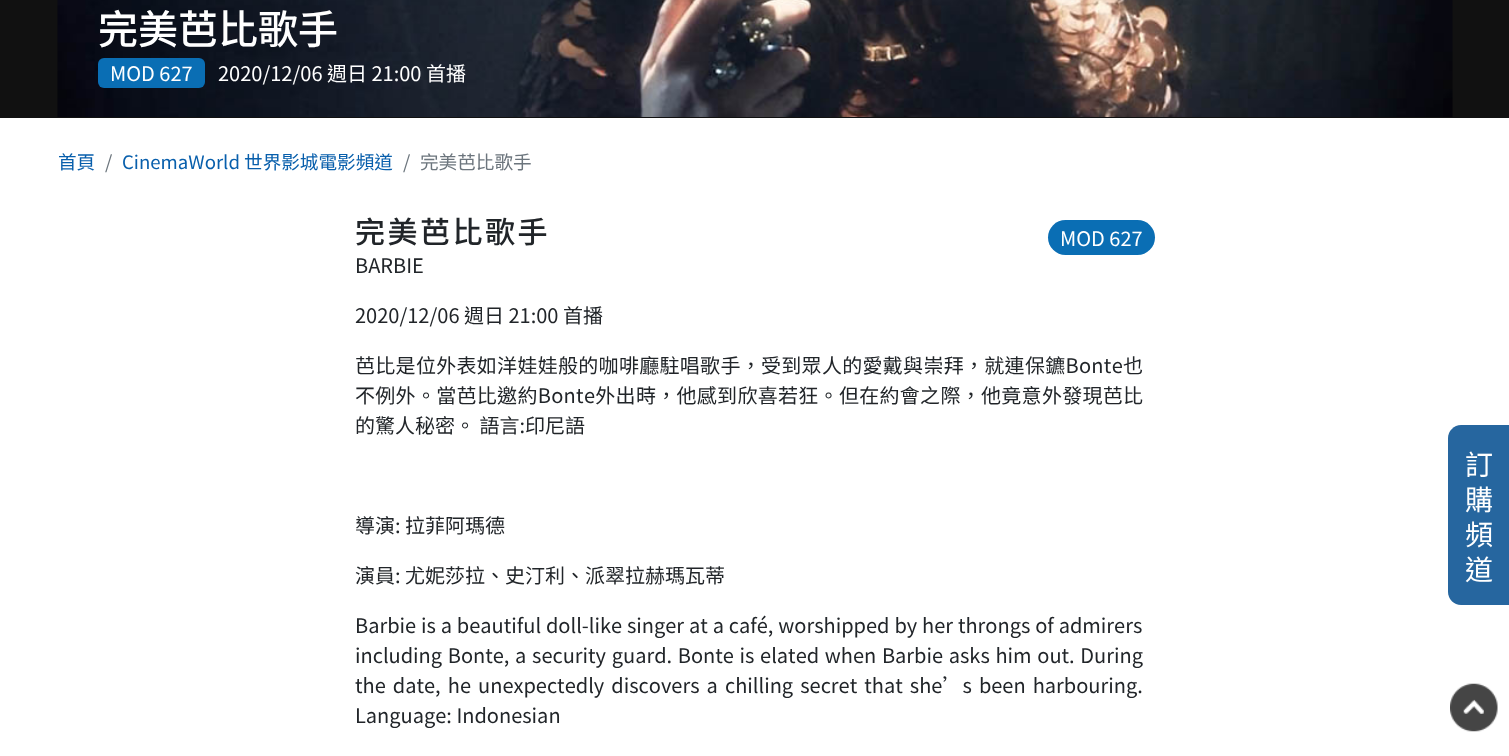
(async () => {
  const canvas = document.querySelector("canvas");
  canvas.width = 1509;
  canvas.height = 756;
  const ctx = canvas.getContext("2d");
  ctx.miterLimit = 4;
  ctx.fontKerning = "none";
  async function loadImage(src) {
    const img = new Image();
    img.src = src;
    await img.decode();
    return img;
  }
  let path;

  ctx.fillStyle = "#111111";
  ctx.fillRect(0, 0, 1509, 756);
  ctx.drawImage(await loadImage("img/1.png"), 57, 0, 1396, 117);
  ctx.fillStyle = "#0a6eb4";
  ctx.beginPath();
  ctx.roundRect(98, 58, 107, 30, 6);
  ctx.fill();
  ctx.fillStyle = "#ffffff";
  ctx.fillRect(0, 118, 1509, 638);
  ctx.fillStyle = "#0a6eb4";
  ctx.beginPath();
  ctx.roundRect(1048, 220, 107, 35, 17.5);
  ctx.fill();
  ctx.fillStyle = "#26669f";
  path = new Path2D("M1461 425H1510V605H1461C1454 605 1448 599 1448 592V438C1448 431 1454 425 1461 425Z");
  ctx.fill(path);
  ctx.drawImage(await loadImage("img/2.png"), 1450, 683, 48, 49);
  ctx.font = "500 40px Noto Sans TC";
  ctx.fillStyle = "#ffffff";
  ctx.fillText("完美芭比歌手", 98, 44);
  ctx.font = "20px Noto Sans TC";
  ctx.fillText("MOD 627", 110, 81);
  ctx.fillText("2020/12/06 週日 21:00 首播", 218, 81);
  ctx.font = "18.6px Noto Sans TC";
  ctx.fillStyle = "#085fac";
  ctx.fillText("首頁", 58, 169);
  ctx.fillStyle = "#6c757d";
  ctx.fillText("/", 105, 169);
  ctx.fillStyle = "#085fac";
  ctx.fillText("CinemaWorld 世界影城電影頻道", 122, 169);
  ctx.fillStyle = "#6c757d";
  ctx.fillText("/", 403, 169);
  ctx.fillText("完美芭比歌手", 420, 169);
  ctx.letterSpacing = "2.5px";
  ctx.font = "500 30px Noto Sans TC";
  ctx.fillStyle = "#212529";
  ctx.fillText("完美芭比歌手", 355, 243);
  ctx.letterSpacing = "0px";
  ctx.font = "20px Noto Sans TC";
  ctx.fillStyle = "#ffffff";
  ctx.fillText("MOD 627", 1060, 246);
  ctx.fillStyle = "#212529";
  ctx.fillText("BARBIE", 355, 273);
  ctx.fillText("2020/12/06 週日 21:00 首播", 355, 323);
  ctx.letterSpacing = "0.3px";
  ctx.fillText("芭比是位外表如洋娃娃般的咖啡廳駐唱歌手，受到眾人的愛戴與崇拜，就連保鑣Bonte也", 355, 373);
  ctx.fillText("不例外。當芭比邀約Bonte外出時，他感到欣喜若狂。但在約會之際，他竟意外發現芭比", 355, 403);
  ctx.letterSpacing = "0px";
  for (const [text, x, y] of [
    ["的驚人秘密。 語言:印尼語", 355, 433],
    ["導演: 拉菲阿瑪德", 355, 533],
    ["演員: 尤妮莎拉、史汀利、派翠拉赫瑪瓦蒂", 355, 583],
  ]) {
    ctx.fillText(text, x, y);
  }
  ctx.wordSpacing = "0.4px";
  ctx.fillText("Barbie is a beautiful doll-like singer at a café, worshipped by her throngs of admirers", 355, 633);
  ctx.wordSpacing = "1.2px";
  ctx.fillText("including Bonte, a security guard. Bonte is elated when Barbie asks him out. During", 355, 663);
  ctx.wordSpacing = "2.6px";
  ctx.fillText("the date, he unexpectedly discovers a chilling secret that she’s been harbouring.", 355, 693);
  ctx.wordSpacing = "0px";
  ctx.fillText("Language: Indonesian", 355, 723);
  ctx.font = "28px Noto Sans TC";
  ctx.fillStyle = "#ffffff";
  for (const [text, x, y] of [
    ["訂", 1465, 475],
    ["購", 1465, 510],
    ["頻", 1465, 545],
    ["道", 1465, 580],
  ]) {
    ctx.fillText(text, x, y);
  }
})();
